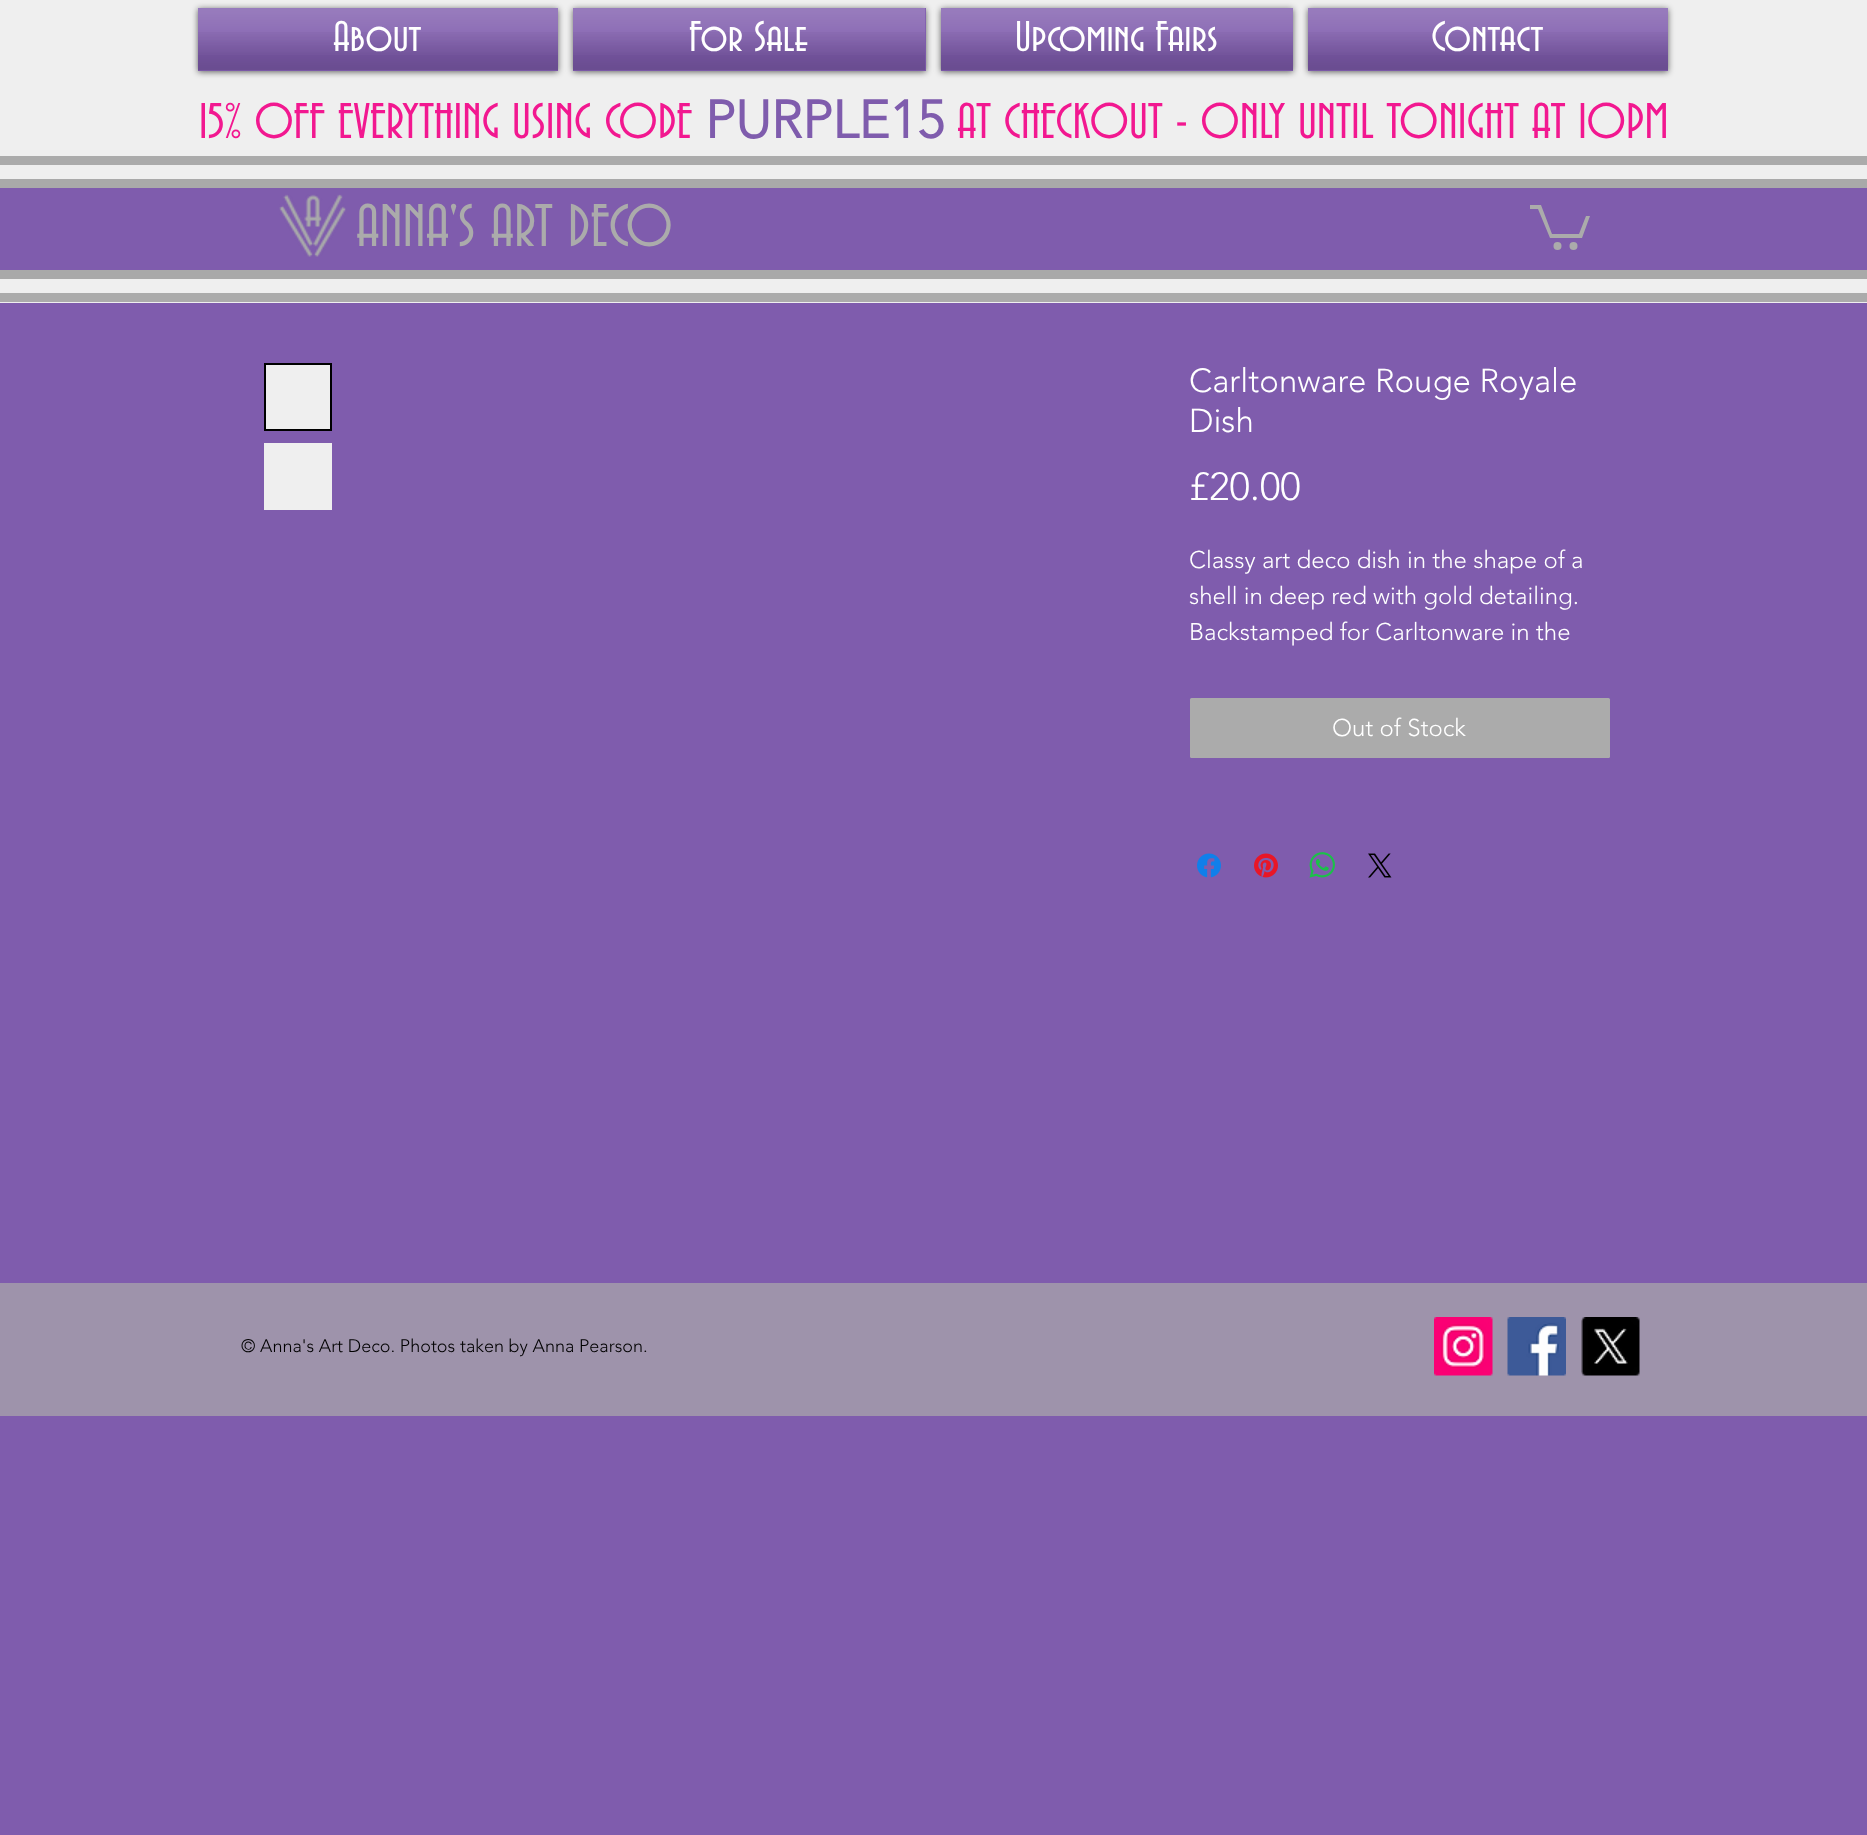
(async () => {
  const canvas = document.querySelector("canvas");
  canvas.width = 1867;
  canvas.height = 1835;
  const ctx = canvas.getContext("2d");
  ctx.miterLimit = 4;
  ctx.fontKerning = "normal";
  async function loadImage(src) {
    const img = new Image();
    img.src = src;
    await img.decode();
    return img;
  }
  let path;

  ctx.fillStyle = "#7f5cad";
  ctx.fillRect(0, 0, 1867, 1835);
  ctx.fillStyle = "#efefef";
  ctx.fillRect(0, 0, 1867, 303);
  ctx.fillStyle = "rgba(0, 0, 0, 0.6)";
  ctx.filter = "blur(3px)";
  ctx.beginPath();
  ctx.rect(198, 9, 360, 63);
  ctx.fill();
  ctx.filter = "none";
  ctx.fillStyle = "#7f5cad";
  ctx.fillRect(198, 8, 360, 63);
  ctx.drawImage(await loadImage("img/1.png"), 198, 8, 360, 47);
  ctx.drawImage(await loadImage("img/2.png"), 198, 32, 360, 39);
  ctx.fillStyle = "rgba(0, 0, 0, 0.6)";
  ctx.filter = "blur(3px)";
  ctx.beginPath();
  ctx.rect(573, 9, 353, 63);
  ctx.fill();
  ctx.filter = "none";
  ctx.fillStyle = "#7f5cad";
  ctx.fillRect(573, 8, 353, 63);
  ctx.drawImage(await loadImage("img/3.png"), 573, 8, 353, 47);
  ctx.drawImage(await loadImage("img/4.png"), 573, 32, 353, 39);
  ctx.fillStyle = "rgba(0, 0, 0, 0.6)";
  ctx.filter = "blur(3px)";
  ctx.beginPath();
  ctx.rect(941, 9, 352, 63);
  ctx.fill();
  ctx.filter = "none";
  ctx.fillStyle = "#7f5cad";
  ctx.fillRect(941, 8, 352, 63);
  ctx.drawImage(await loadImage("img/5.png"), 941, 8, 352, 47);
  ctx.drawImage(await loadImage("img/6.png"), 940, 32, 353, 39);
  ctx.fillStyle = "rgba(0, 0, 0, 0.6)";
  ctx.filter = "blur(3px)";
  ctx.beginPath();
  ctx.rect(1308, 9, 360, 63);
  ctx.fill();
  ctx.filter = "none";
  ctx.fillStyle = "#7f5cad";
  ctx.fillRect(1308, 8, 360, 63);
  ctx.drawImage(await loadImage("img/1.png"), 1308, 8, 360, 47);
  ctx.drawImage(await loadImage("img/2.png"), 1308, 32, 360, 39);
  for (const [x, y, w, h, color] of [
    [0, 156, 1867, 9, "#ababab"],
    [0, 293, 1867, 9, "#ababab"],
    [0, 179, 1867, 9, "#a9a9a9"],
    [0, 270, 1867, 9, "#a9a9a9"],
    [0, 188, 1867, 82, "#7f5cad"],
  ]) {
    ctx.fillStyle = color;
    ctx.fillRect(x, y, w, h);
  }
  ctx.drawImage(await loadImage("img/7.png"), 279, 194, 67, 63);
  ctx.fillStyle = "#ababab";
  path = new Path2D("M1590 216L1582 238H1550L1538 209H1530V205H1541L1552 234H1579L1586 216");
  ctx.fill(path);
  ctx.beginPath();
  ctx.arc(1573.5, 246, 4, 0, Math.PI * 2);
  ctx.fill();
  ctx.beginPath();
  ctx.arc(1557.5, 246, 4, 0, Math.PI * 2);
  ctx.fill();
  ctx.fillStyle = "#efefef";
  ctx.beginPath();
  ctx.rect(265, 364, 66, 66);
  ctx.fill();
  ctx.strokeStyle = "#000000";
  ctx.lineWidth = 2;
  ctx.stroke();
  ctx.fillRect(264, 443, 68, 67);
  ctx.fillStyle = "#ababab";
  ctx.beginPath();
  ctx.roundRect(1190, 698, 420, 60, 1.5);
  ctx.fill();
  ctx.drawImage(await loadImage("img/8.png"), 1197, 853, 24, 25);
  ctx.drawImage(await loadImage("img/9.png"), 1254, 853, 24, 25);
  ctx.drawImage(await loadImage("img/10.png"), 1309, 852, 26, 26);
  ctx.drawImage(await loadImage("img/11.png"), 1368, 853, 24, 25);
  ctx.fillStyle = "#9e93ab";
  ctx.fillRect(0, 1283, 1867, 133);
  ctx.drawImage(await loadImage("img/12.png"), 1434, 1317, 59, 59);
  ctx.drawImage(await loadImage("img/13.png"), 1507, 1317, 59, 59);
  ctx.drawImage(await loadImage("img/14.png"), 1581, 1317, 59, 59);
  ctx.font = "45px 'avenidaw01'";
  ctx.fillStyle = "#ffffff";
  for (const [text, x, y] of [
    ["About", 333, 51],
    ["For Sale", 689, 51],
    ["Upcoming Fairs", 1015, 51],
    ["Contact", 1431, 51],
  ]) {
    ctx.fillText(text, x, y);
  }
  ctx.font = "52.5px 'avenidaw01'";
  ctx.fillStyle = "#f21890";
  ctx.fillText("15% OFF EVERYTHING USING CODE", 199, 138);
  ctx.font = "bold 52.5px 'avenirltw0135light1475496'";
  ctx.fillStyle = "#7f5cad";
  ctx.fillText("PURPLE15", 705, 138);
  ctx.font = "52.5px 'avenidaw01'";
  ctx.fillStyle = "#f21890";
  ctx.fillText("AT CHECKOUT - ONLY UNTIL TONIGHT AT 10PM", 957, 138);
  ctx.font = "63px 'avenidaw01'";
  ctx.fillStyle = "#ababab";
  ctx.fillText("ANNA'S ART DECO", 356, 246);
  ctx.font = "300 33px 'avenirltw0135light1475496'";
  ctx.fillStyle = "#ffffff";
  ctx.fillText("Carltonware Rouge Royale", 1189, 392);
  ctx.fillText("Dish", 1189, 432);
  ctx.font = "300 39px 'avenirltw0135light1475496'";
  ctx.fillText("£20.00", 1189, 500);
  ctx.font = "300 24px 'avenirltw0135light1475496'";
  for (const [text, x, y] of [
    ["Classy art deco dish in the shape of a", 1189, 568],
    ["shell in deep red with gold detailing.", 1189, 604],
    ["Backstamped for Carltonware in the", 1189, 640],
    ["Out of Stock", 1332, 736],
  ]) {
    ctx.fillText(text, x, y);
  }
  ctx.font = "300 18px 'avenirltw0135light1475496'";
  ctx.fillStyle = "#000000";
  ctx.fillText("© Anna's Art Deco. Photos taken by Anna Pearson.", 241, 1352);
})();
